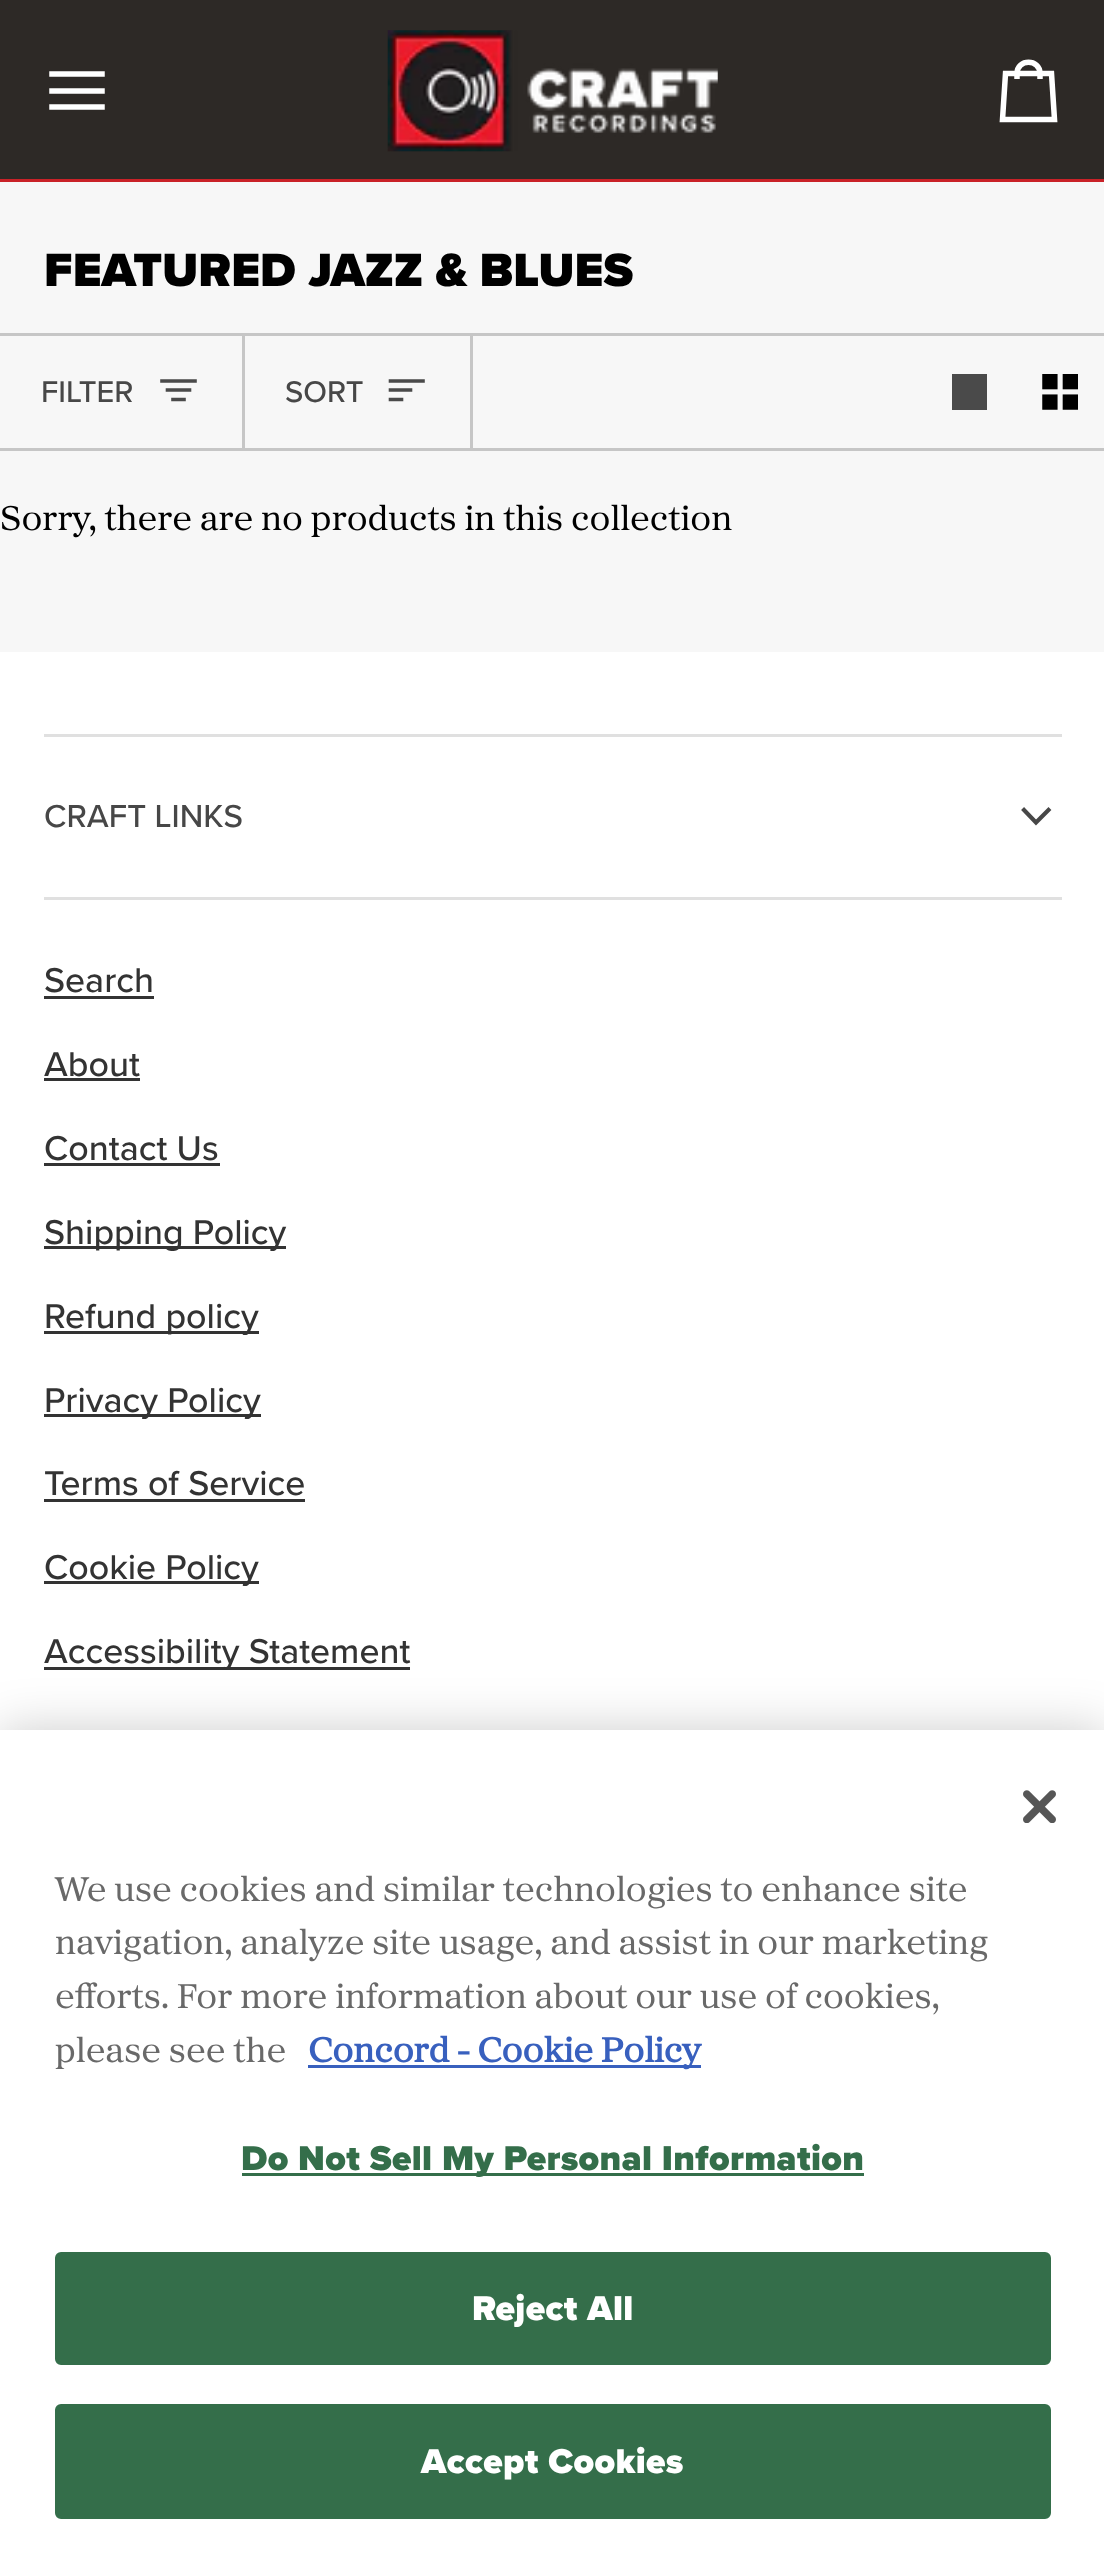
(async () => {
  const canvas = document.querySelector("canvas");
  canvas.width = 1104;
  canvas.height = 2557;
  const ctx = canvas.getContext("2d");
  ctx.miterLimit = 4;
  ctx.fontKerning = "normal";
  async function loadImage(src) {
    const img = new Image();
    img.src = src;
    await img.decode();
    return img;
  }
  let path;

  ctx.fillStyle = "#ffffff";
  ctx.fillRect(0, 0, 1104, 2557);
  ctx.fillStyle = "#2d2926";
  ctx.fillRect(0, 0, 1104, 179);
  ctx.fillStyle = "#c92228";
  ctx.fillRect(0, 179, 1104, 3);
  path = new Path2D("M102 74H52M102 91H52M102 107H52");
  ctx.strokeStyle = "#ffffff";
  ctx.lineWidth = 5.5;
  ctx.lineCap = "square";
  ctx.stroke(path);
  ctx.drawImage(await loadImage("img/1.png"), 387, 30, 331, 122);
  path = new Path2D("M1040 79V73.5H1051.5L1054.5 119.5H1002.5L1005.5 73.5H1017C1017 58.5 1040 58.5 1040 73.5H1017V79");
  ctx.lineCap = "butt";
  ctx.stroke(path);
  for (const [x, y, w, h, color] of [
    [0, 182, 1104, 470, "#f7f7f7"],
    [0, 333, 1104, 3, "#c6c6c6"],
    [0, 448, 1104, 3, "#c6c6c6"],
    [242, 336, 3, 112, "#c6c6c6"],
  ]) {
    ctx.fillStyle = color;
    ctx.fillRect(x, y, w, h);
  }
  path = new Path2D("M195 381H162M189.5 390H167.5M184 399.5H173");
  ctx.strokeStyle = "#4a4a4a";
  ctx.lineWidth = 3.6;
  ctx.lineCap = "square";
  ctx.stroke(path);
  ctx.fillRect(470, 336, 3, 112);
  path = new Path2D("M423 381H390.5M410.5 390H390.5M401.5 399.5H390.5");
  ctx.stroke(path);
  ctx.fillStyle = "#4a4a4a";
  ctx.fillRect(952, 374, 35, 36);
  ctx.drawImage(await loadImage("img/2.png"), 1042, 374, 36, 36);
  ctx.fillStyle = "#e0e0e0";
  ctx.fillRect(44, 734, 1018, 3);
  ctx.fillRect(44, 897, 1018, 3);
  path = new Path2D("M1024 810L1036 822.5L1048.5 810");
  ctx.strokeStyle = "#474747";
  ctx.lineWidth = 4.1;
  ctx.stroke(path);
  for (const [x, y, w, h, color] of [
    [44, 996, 110, 3, "#333333"],
    [44, 1078, 96, 3, "#333333"],
    [44, 1163, 176, 3, "#333333"],
    [44, 1246, 242, 3, "#333333"],
    [44, 1331, 215, 3, "#333333"],
    [44, 1414, 217, 3, "#333333"],
    [44, 1499, 261, 3, "#333333"],
    [44, 1581, 215, 3, "#333333"],
    [44, 1667, 366, 3, "#333333"],
  ]) {
    ctx.fillStyle = color;
    ctx.fillRect(x, y, w, h);
  }
  ctx.fillStyle = "rgba(0, 0, 0, 0.2)";
  ctx.filter = "blur(25px)";
  ctx.beginPath();
  ctx.rect(0, 1730, 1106, 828);
  ctx.fill();
  ctx.filter = "none";
  ctx.fillStyle = "#ffffff";
  ctx.fillRect(0, 1730, 1104, 827);
  ctx.drawImage(await loadImage("img/3.png"), 1023, 1790, 33, 33);
  ctx.fillStyle = "#3860be";
  ctx.fillRect(308, 2065, 393, 3);
  ctx.fillStyle = "#346e4a";
  ctx.fillRect(242, 2173, 622, 3);
  ctx.beginPath();
  ctx.roundRect(56.5, 2253.5, 993, 110, 4.5);
  ctx.fill();
  ctx.strokeStyle = "#346e4a";
  ctx.lineWidth = 3;
  ctx.stroke();
  ctx.beginPath();
  ctx.roundRect(56.5, 2405.5, 993, 112, 4.5);
  ctx.fill();
  ctx.stroke();
  ctx.font = "900 48.5px Proxima Nova";
  ctx.fillStyle = "#000000";
  ctx.fillText("FEATURED JAZZ & BLUES", 44, 286);
  ctx.font = "500 31px Proxima Nova";
  ctx.fillStyle = "#474747";
  ctx.fillText("FILTER", 41, 402);
  ctx.fillText("SORT", 285, 402);
  ctx.font = "35.75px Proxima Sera";
  ctx.fillStyle = "#000000";
  ctx.fillText("Sorry, there are no products in this collection", 0, 530);
  ctx.font = "500 33px Proxima Nova";
  ctx.fillStyle = "#474747";
  ctx.fillText("CRAFT LINKS", 44, 827);
  ctx.font = "500 35.75px Proxima Nova";
  ctx.fillStyle = "#333333";
  for (const [text, x, y] of [
    ["Search", 44, 992],
    ["About", 44, 1076],
    ["Contact Us", 44, 1160],
    ["Shipping Policy", 44, 1244],
    ["Refund policy", 44, 1328],
    ["Privacy Policy", 44, 1412],
    ["Terms of Service", 44, 1495],
    ["Cookie Policy", 44, 1579],
    ["Accessibility Statement", 44, 1663],
  ]) {
    ctx.fillText(text, x, y);
  }
  ctx.font = "35.75px Proxima Sera";
  ctx.fillStyle = "#696969";
  for (const [text, x, y] of [
    ["We use cookies and similar technologies to enhance site", 55, 1901],
    ["navigation, analyze site usage, and assist in our marketing", 55, 1954],
    ["efforts. For more information about our use of cookies,", 55, 2008],
    ["please see the", 55, 2062],
  ]) {
    ctx.fillText(text, x, y);
  }
  ctx.font = "bold 35.75px Proxima Sera";
  ctx.fillStyle = "#3860be";
  ctx.fillText("Concord - Cookie Policy", 308, 2062);
  ctx.letterSpacing = "0.35px";
  ctx.font = "900 35.75px Proxima Nova";
  ctx.fillStyle = "#346e4a";
  ctx.fillText("Do Not Sell My Personal Information", 241, 2170);
  ctx.fillStyle = "#ffffff";
  ctx.fillText("Reject All", 472, 2320);
  ctx.fillText("Accept Cookies", 421, 2473);
})();
